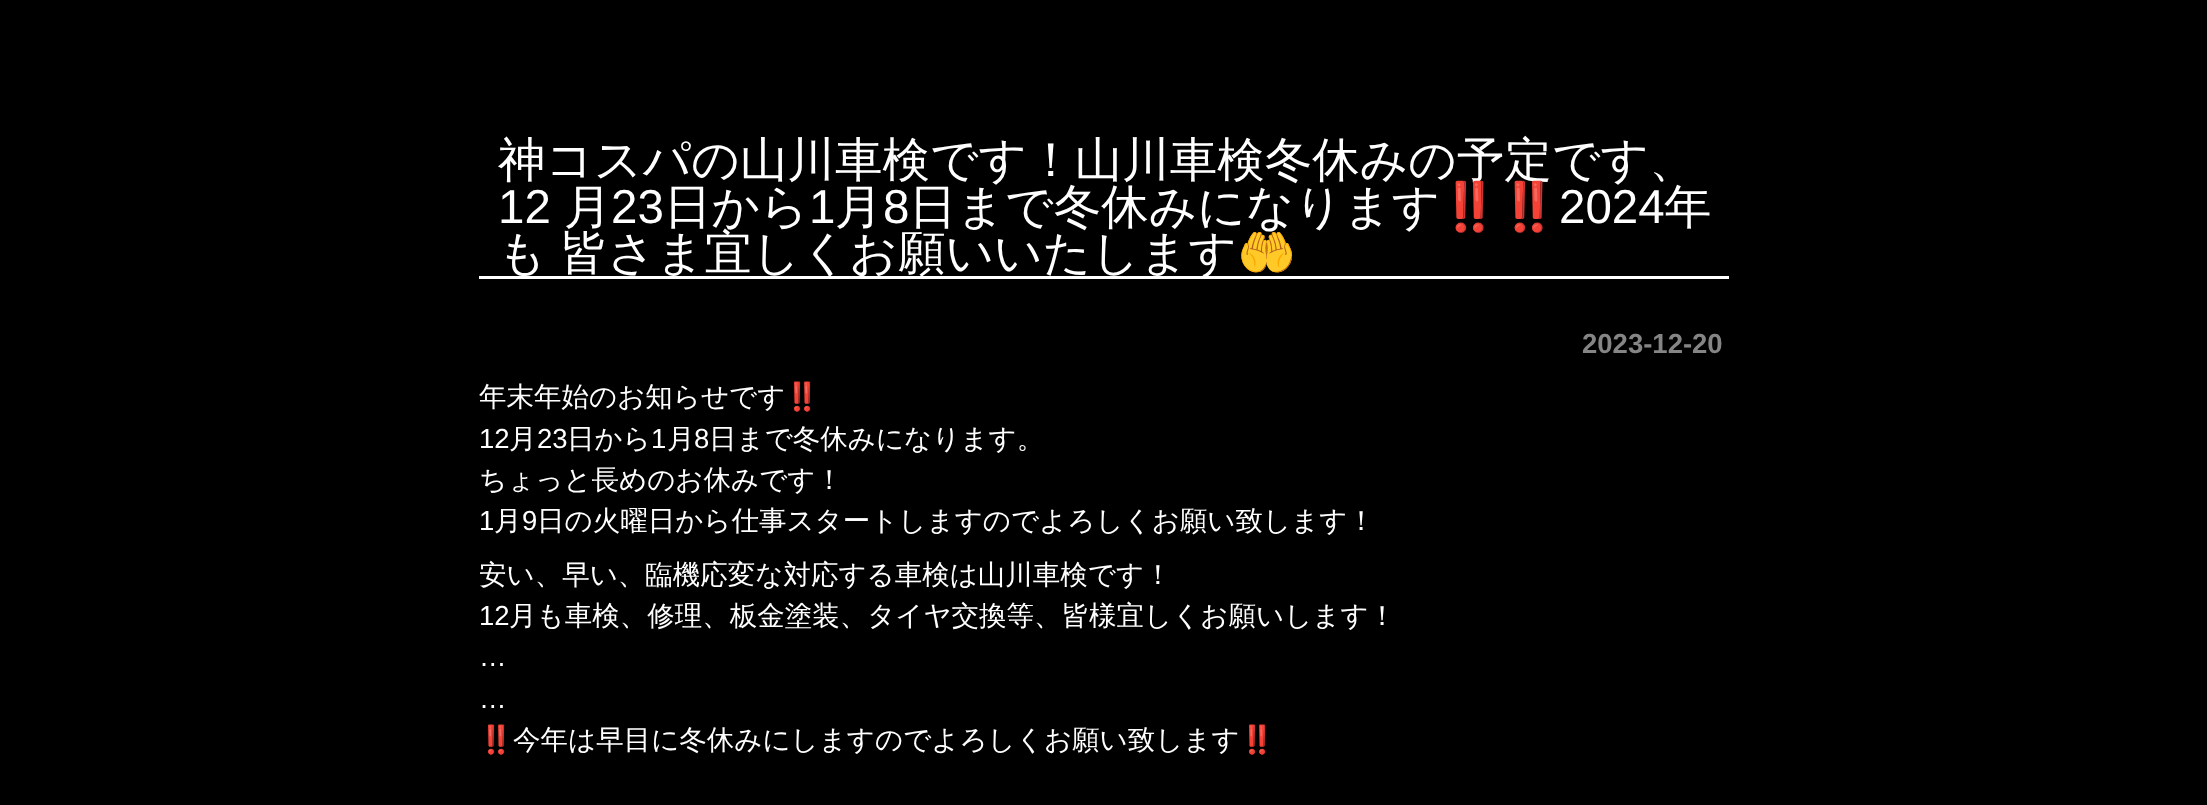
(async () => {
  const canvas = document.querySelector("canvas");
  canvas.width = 2207;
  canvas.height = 805;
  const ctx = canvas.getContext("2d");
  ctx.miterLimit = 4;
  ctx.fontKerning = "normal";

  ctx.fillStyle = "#000000";
  ctx.fillRect(0, 0, 2207, 805);
  ctx.fillStyle = "#ffffff";
  ctx.fillRect(479, 276, 1250, 3);
  ctx.font = "500 47.5px WenQuanYi Zen Hei";
  ctx.fillText("神コスパの山川車検です！山川車検冬休みの予定です、", 498, 176);
  ctx.font = "47.5px Liberation Sans";
  ctx.fillText("12", 498, 223);
  ctx.font = "500 47.5px WenQuanYi Zen Hei";
  ctx.fillText("月", 564, 223);
  ctx.font = "47.5px Liberation Sans";
  ctx.fillText("23", 611, 223);
  ctx.font = "500 47.5px WenQuanYi Zen Hei";
  ctx.fillText("日から", 664, 223);
  ctx.font = "47.5px Liberation Sans";
  ctx.fillText("1", 809, 223);
  ctx.font = "500 47.5px WenQuanYi Zen Hei";
  ctx.fillText("月", 835, 223);
  ctx.font = "47.5px Liberation Sans";
  ctx.fillText("8", 883, 223);
  ctx.font = "500 47.5px WenQuanYi Zen Hei";
  ctx.fillText("日まで冬休みになります", 909, 223);
  ctx.font = "47.5px Noto Color Emoji";
  ctx.fillText("‼️‼️", 1440, 223);
  ctx.font = "47.5px Liberation Sans";
  ctx.fillText("2024", 1559, 223);
  ctx.font = "500 47.5px WenQuanYi Zen Hei";
  ctx.fillText("年", 1664, 223);
  ctx.wordSpacing = "-1px";
  ctx.fillText("も 皆さま宜しくお願いいたします", 498, 269);
  ctx.wordSpacing = "0px";
  ctx.font = "47.5px Noto Color Emoji";
  ctx.fillText("🤲", 1237, 269);
  ctx.font = "bold 27.5px Liberation Sans";
  ctx.fillStyle = "#858585";
  ctx.fillText("2023-12-20", 1582, 353);
  ctx.font = "500 27.5px WenQuanYi Zen Hei";
  ctx.fillStyle = "#ffffff";
  ctx.fillText("年末年始のお知らせです", 479, 406);
  ctx.font = "27.5px Noto Color Emoji";
  ctx.fillText("‼️", 785, 406);
  ctx.font = "27.5px Liberation Sans";
  ctx.fillText("12", 479, 448);
  ctx.font = "500 27.5px WenQuanYi Zen Hei";
  ctx.fillText("月", 509, 448);
  ctx.font = "27.5px Liberation Sans";
  ctx.fillText("23", 537, 448);
  ctx.font = "500 27.5px WenQuanYi Zen Hei";
  ctx.fillText("日から", 567, 448);
  ctx.font = "27.5px Liberation Sans";
  ctx.fillText("1", 651, 448);
  ctx.font = "500 27.5px WenQuanYi Zen Hei";
  ctx.fillText("月", 667, 448);
  ctx.font = "27.5px Liberation Sans";
  ctx.fillText("8", 694, 448);
  ctx.font = "500 27.5px WenQuanYi Zen Hei";
  ctx.fillText("日まで冬休みになります。", 709, 448);
  ctx.fillText("ちょっと長めのお休みです！", 479, 489);
  ctx.font = "27.5px Liberation Sans";
  ctx.fillText("1", 479, 530);
  ctx.font = "500 27.5px WenQuanYi Zen Hei";
  ctx.fillText("月", 494, 530);
  ctx.font = "27.5px Liberation Sans";
  ctx.fillText("9", 522, 530);
  ctx.font = "500 27.5px WenQuanYi Zen Hei";
  ctx.fillText("日の火曜日から仕事スタートしますのでよろしくお願い致します！", 537, 530);
  ctx.fillText("安い、早い、臨機応変な対応する車検は山川車検です！", 479, 584);
  ctx.font = "27.5px Liberation Sans";
  ctx.fillText("12", 479, 625);
  ctx.font = "500 27.5px WenQuanYi Zen Hei";
  ctx.fillText("月も車検、修理、板金塗装、タイヤ交換等、皆様宜しくお願いします！", 509, 625);
  ctx.font = "27.5px Liberation Sans";
  ctx.fillText("…", 479, 666);
  ctx.fillText("…", 479, 708);
  ctx.font = "27.5px Noto Color Emoji";
  ctx.fillText("‼️", 479, 749);
  ctx.font = "500 27.5px WenQuanYi Zen Hei";
  ctx.fillText("今年は早目に冬休みにしますのでよろしくお願い致します", 513, 749);
  ctx.font = "27.5px Noto Color Emoji";
  ctx.fillText("‼️", 1240, 749);
})();
